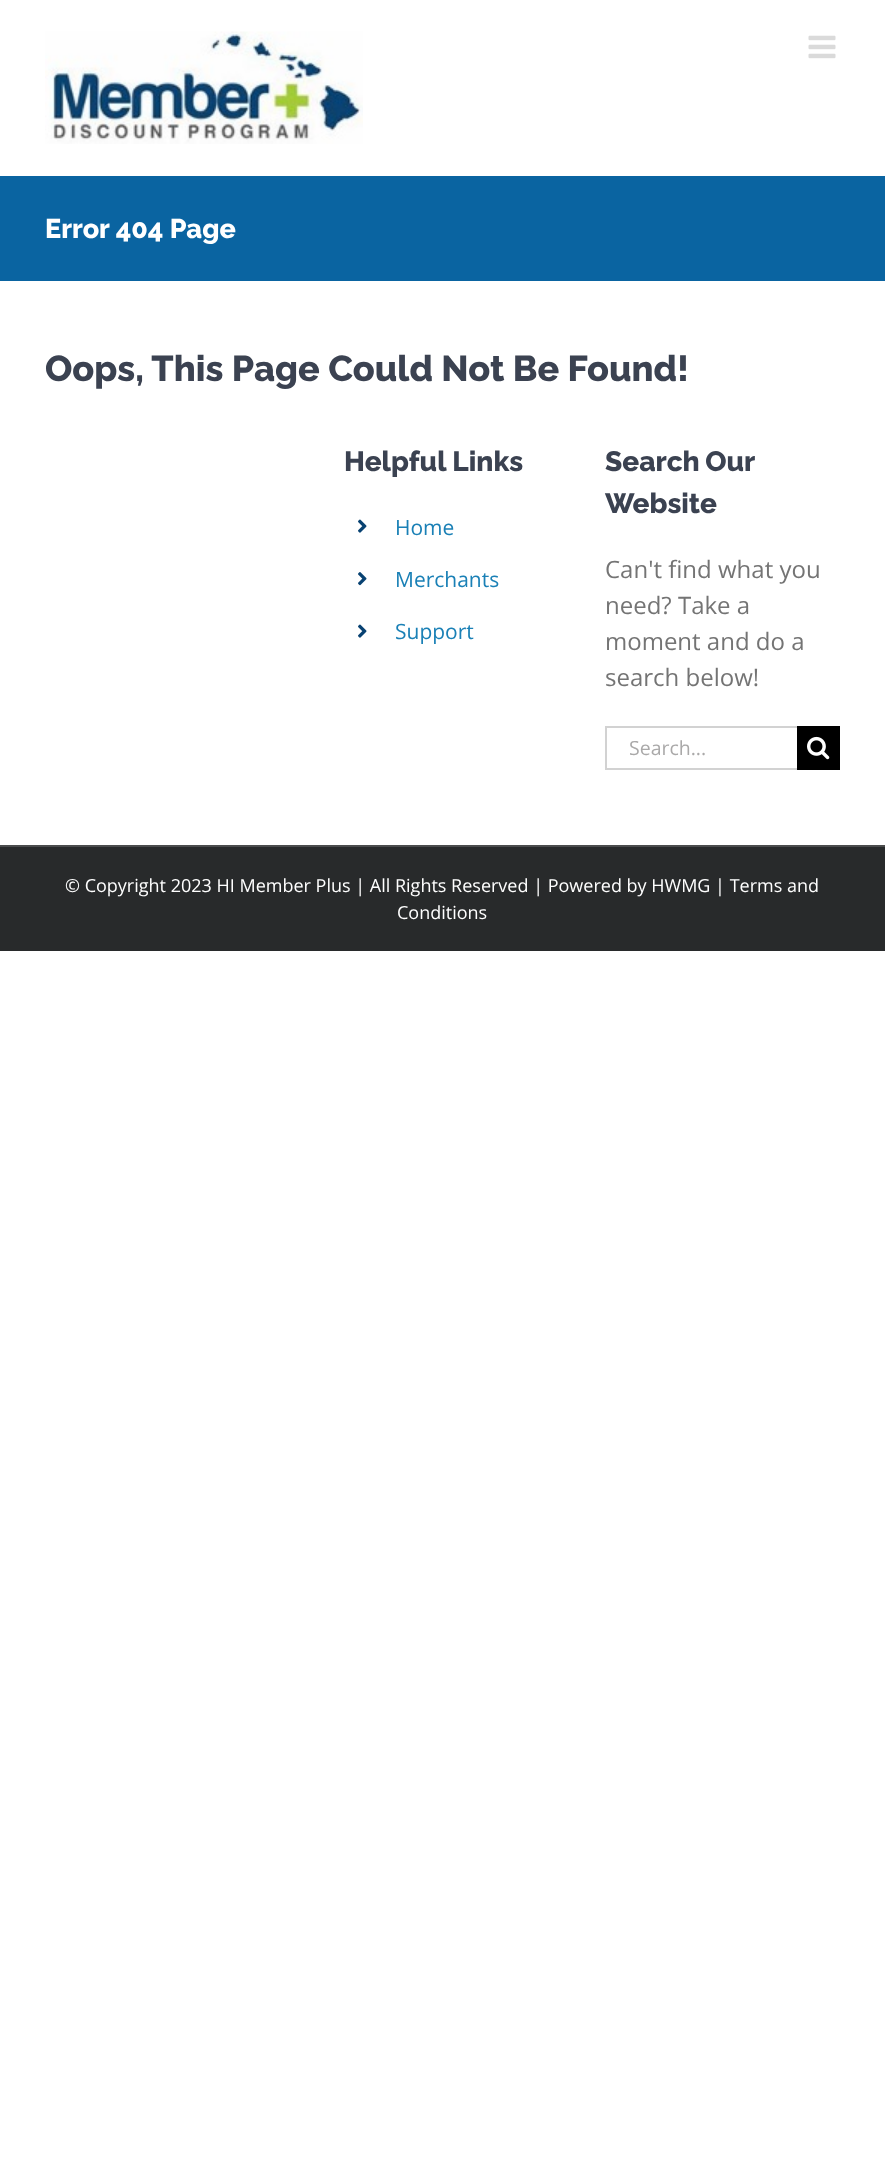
(async () => {
  const canvas = document.querySelector("canvas");
  canvas.width = 885;
  canvas.height = 2170;
  const ctx = canvas.getContext("2d");
  ctx.miterLimit = 4;
  ctx.fontKerning = "normal";
  async function loadImage(src) {
    const img = new Image();
    img.src = src;
    await img.decode();
    return img;
  }

  ctx.fillStyle = "#ffffff";
  ctx.fillRect(0, 0, 885, 2170);
  ctx.drawImage(await loadImage("img/1.png"), 45, 31, 318, 113);
  ctx.drawImage(await loadImage("img/2.png"), 808, 35, 28, 24);
  ctx.fillStyle = "#0a64a1";
  ctx.fillRect(0, 176, 885, 105);
  ctx.drawImage(await loadImage("img/3.png"), 358, 519, 9, 14);
  ctx.drawImage(await loadImage("img/4.png"), 358, 572, 9, 14);
  ctx.drawImage(await loadImage("img/3.png"), 358, 624, 9, 14);
  for (const [x, y, w, h, color] of [
    [605, 726, 192, 2, "#d2d2d2"],
    [605, 768, 192, 2, "#d2d2d2"],
    [605, 726, 2, 44, "#d2d2d2"],
    [797, 726, 43, 44, "#000000"],
  ]) {
    ctx.fillStyle = color;
    ctx.fillRect(x, y, w, h);
  }
  ctx.drawImage(await loadImage("img/5.png"), 807, 736, 23, 24);
  ctx.fillStyle = "#282a2b";
  ctx.fillRect(0, 847, 885, 104);
  ctx.fillStyle = "#4b4c4d";
  ctx.fillRect(0, 845, 885, 2);
  ctx.font = "100 27px Raleway";
  ctx.fillStyle = "#ffffff";
  ctx.fillText("Error 404 Page", 45, 238);
  ctx.font = "100 36px Raleway";
  ctx.fillStyle = "#3b4251";
  ctx.fillText("Oops, This Page Could Not Be Found!", 45, 381);
  ctx.font = "100 28px Raleway";
  ctx.fillText("Helpful Links", 344, 471);
  ctx.font = "21px Open Sans";
  ctx.fillStyle = "#1a80b6";
  for (const [text, x, y] of [
    ["Home", 395, 535],
    ["Merchants", 395, 587],
    ["Support", 395, 639],
  ]) {
    ctx.fillText(text, x, y);
  }
  ctx.wordSpacing = "-1px";
  ctx.font = "100 28px Raleway";
  ctx.fillStyle = "#3b4251";
  ctx.fillText("Search Our", 605, 471);
  ctx.wordSpacing = "0px";
  ctx.fillText("Website", 605, 513);
  ctx.font = "24px Open Sans";
  ctx.fillStyle = "#747474";
  for (const [text, x, y] of [
    ["Can't find what you", 605, 578],
    ["need? Take a", 605, 614],
    ["moment and do a", 605, 650],
    ["search below!", 605, 686],
  ]) {
    ctx.fillText(text, x, y);
  }
  ctx.font = "19.5px Open Sans";
  ctx.fillStyle = "#aaa9a9";
  ctx.fillText("Search...", 629, 755);
  ctx.font = "18px Open Sans";
  ctx.fillStyle = "#ffffff";
  ctx.fillText("© Copyright 2023 HI Member Plus | All Rights Reserved | Powered by HWMG | Terms and", 65, 892);
  ctx.fillText("Conditions", 397, 919);
})();
